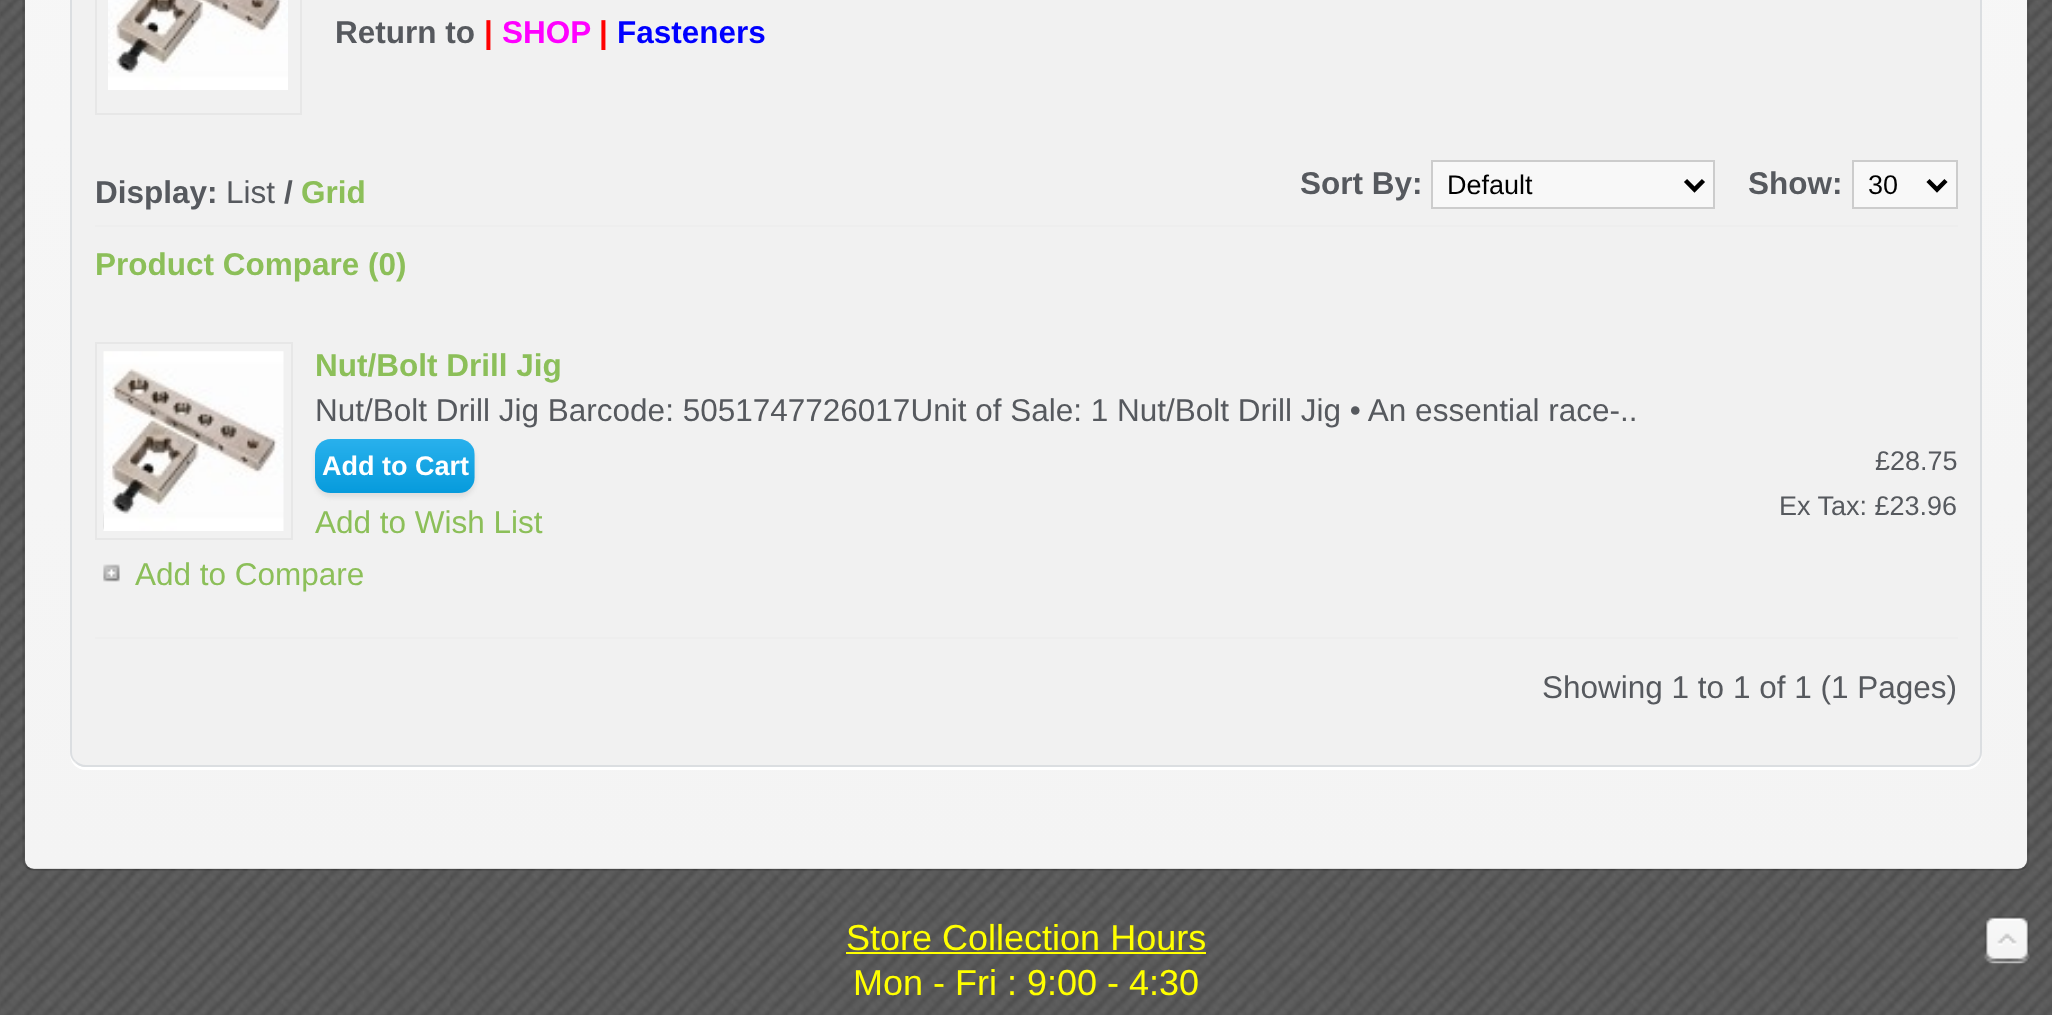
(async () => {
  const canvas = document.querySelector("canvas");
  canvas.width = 2052;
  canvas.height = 1015;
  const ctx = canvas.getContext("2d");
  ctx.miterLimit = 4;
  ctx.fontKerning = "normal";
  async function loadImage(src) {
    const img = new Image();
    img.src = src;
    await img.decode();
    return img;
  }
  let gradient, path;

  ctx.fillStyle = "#ffffff";
  ctx.fillRect(0, 0, 2052, 1015);
  ctx.drawImage(await loadImage("img/1.png"), 0, 0, 2052, 1015);
  gradient = ctx.createLinearGradient(1026, -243, 1026, 869);
  gradient.addColorStop(0, "#f7f7f7");
  gradient.addColorStop(1, "#f4f4f4");
  ctx.fillStyle = gradient;
  ctx.beginPath();
  ctx.roundRect(25, -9, 2002, 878, 9);
  ctx.fill();
  path = new Path2D("M2025.5 866.5C2023.5 868.5 2021 869.5 2018 869.5H34C31 869.5 28.5 868.5 26.5 866.5");
  ctx.strokeStyle = "rgba(0, 0, 0, 0.2)";
  ctx.lineWidth = 2.2;
  ctx.stroke(path);
  path = new Path2D("M26.5 866.5C24.5 865 23.5 862 23.5 859.5V-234C23.5-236.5 24.5-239.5 26.5-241C28.5-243 31-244 34-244H2018C2021-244 2023.5-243 2025.5-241C2027.5-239.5 2028.5-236.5 2028.5-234V859.5C2028.5 862 2027.5 865 2025.5 866.5");
  ctx.strokeStyle = "rgba(0, 0, 0, 0.1)";
  ctx.stroke(path);
  ctx.fillStyle = "#ffffff";
  path = new Path2D("M70 754C70 763 77 770 86 770H1966C1975 770 1982 763 1982 754C1981 762 1974 767 1966 767H86C78 767 71 762 70 754Z");
  ctx.fill(path);
  ctx.fillStyle = "#f1f1f1";
  path = new Path2D("M70-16H1982V751C1982 760 1975 767 1966 767H86C77 767 70 760 70 751Z");
  ctx.fill(path);
  ctx.fillStyle = "#dbdee1";
  path = new Path2D("M1977 762C1980 760 1982 756 1982 752V-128L1980-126V752C1980 755 1979 759 1976 761Z");
  ctx.fill(path);
  path = new Path2D("M1977 762C1975 765 1971 767 1966 767H86C81 767 77 765 75 762L76 761C78 763 82 765 86 765H1966C1970 765 1974 763 1976 761Z");
  ctx.fill(path);
  path = new Path2D("M72-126L70-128V752C70 756 72 760 75 762L76 761C73 759 72 755 72 752Z");
  ctx.fill(path);
  ctx.strokeStyle = "#e7e7e7";
  ctx.lineWidth = 2;
  ctx.strokeRect(96, -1, 205, 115);
  ctx.drawImage(await loadImage("img/2.png"), 108, 0, 180, 90);
  ctx.fillStyle = "#eeeeee";
  ctx.fillRect(95, 225, 1863, 2);
  ctx.fillStyle = "#f8f8f8";
  ctx.beginPath();
  ctx.rect(1432, 161, 282, 47);
  ctx.fill();
  ctx.strokeStyle = "#cccccc";
  ctx.stroke();
  path = new Path2D("M1685.5 180.5L1694.5 189.5L1703.5 180.5");
  ctx.strokeStyle = "#000000";
  ctx.lineWidth = 4.5;
  ctx.stroke(path);
  ctx.beginPath();
  ctx.rect(1853, 161, 104, 47);
  ctx.fill();
  ctx.strokeStyle = "#cccccc";
  ctx.lineWidth = 2;
  ctx.stroke();
  path = new Path2D("M1928 180.5L1937 189.5L1946 180.5");
  ctx.strokeStyle = "#000000";
  ctx.lineWidth = 4.5;
  ctx.stroke(path);
  ctx.drawImage(await loadImage("img/5.png"), 103, 512, 1, 18);
  ctx.strokeStyle = "#e7e7e7";
  ctx.lineWidth = 2;
  ctx.strokeRect(96, 343, 196, 196);
  ctx.drawImage(await loadImage("img/3.png"), 103, 351, 181, 180);
  ctx.fillStyle = "#dddddd";
  ctx.filter = "blur(2px)";
  ctx.beginPath();
  ctx.roundRect(315, 443, 160, 54, 16);
  ctx.fill();
  ctx.filter = "none";
  ctx.drawImage(await loadImage("img/4.png"), 315, 439, 160, 54);
  ctx.drawImage(await loadImage("img/6.png"), 103, 564, 17, 18);
  ctx.fillStyle = "#eeeeee";
  ctx.fillRect(95, 637, 1863, 2);
  ctx.fillStyle = "#ffff00";
  ctx.fillRect(846, 952, 360, 2);
  ctx.drawImage(await loadImage("img/7.png"), 1984, 916, 46, 48);
  ctx.font = "bold 31.5px Liberation Sans";
  ctx.fillStyle = "#56595e";
  ctx.fillText("Return to", 335, 43);
  ctx.fillStyle = "#ff0000";
  ctx.fillText("|", 484, 43);
  ctx.fillStyle = "#ff00ff";
  ctx.fillText("SHOP", 502, 43);
  ctx.fillStyle = "#ff0000";
  ctx.fillText("|", 599, 43);
  ctx.fillStyle = "#0000ff";
  ctx.fillText("Fasteners", 617, 43);
  ctx.fillStyle = "#56595e";
  ctx.fillText("Display:", 95, 203);
  ctx.font = "31.5px Liberation Sans";
  ctx.fillText("List", 226, 203);
  ctx.font = "bold 31.5px Liberation Sans";
  ctx.fillText("/", 284, 203);
  ctx.fillStyle = "#8cbf59";
  ctx.fillText("Grid", 301, 203);
  ctx.fillStyle = "#56595e";
  ctx.fillText("Sort By:", 1300, 194);
  ctx.font = "27px Liberation Sans";
  ctx.fillStyle = "#000000";
  ctx.fillText("Default", 1447, 194);
  ctx.font = "bold 31.5px Liberation Sans";
  ctx.fillStyle = "#56595e";
  ctx.fillText("Show:", 1748, 194);
  ctx.font = "27px Liberation Sans";
  ctx.fillStyle = "#000000";
  ctx.fillText("30", 1868, 194);
  ctx.font = "bold 31.5px Liberation Sans";
  ctx.fillStyle = "#8cbf59";
  ctx.fillText("Product Compare (0)", 95, 275);
  ctx.fillText("Nut/Bolt Drill Jig", 315, 376);
  ctx.font = "31.5px Liberation Sans";
  ctx.fillStyle = "#56595e";
  ctx.fillText("Nut/Bolt Drill Jig Barcode: 5051747726017Unit of Sale: 1 Nut/Bolt Drill Jig • An essential race-..", 315, 421);
  ctx.font = "bold 27px Liberation Sans";
  ctx.fillStyle = "#ffffff";
  ctx.fillText("Add to Cart", 322, 475);
  ctx.font = "27px Liberation Sans";
  ctx.fillStyle = "#56595e";
  ctx.fillText("£28.75", 1875, 470);
  ctx.fillText("Ex Tax: £23.96", 1779, 515);
  ctx.font = "31.5px Liberation Sans";
  ctx.fillStyle = "#8cbf59";
  ctx.fillText("Add to Wish List", 315, 533);
  ctx.fillText("Add to Compare", 135, 585);
  ctx.fillStyle = "#56595e";
  ctx.fillText("Showing 1 to 1 of 1 (1 Pages)", 1542, 698);
  ctx.font = "36px Liberation Sans";
  ctx.fillStyle = "#ffff00";
  ctx.fillText("Store Collection Hours", 846, 950);
  ctx.fillText("Mon - Fri : 9:00 - 4:30", 853, 995);
})();
